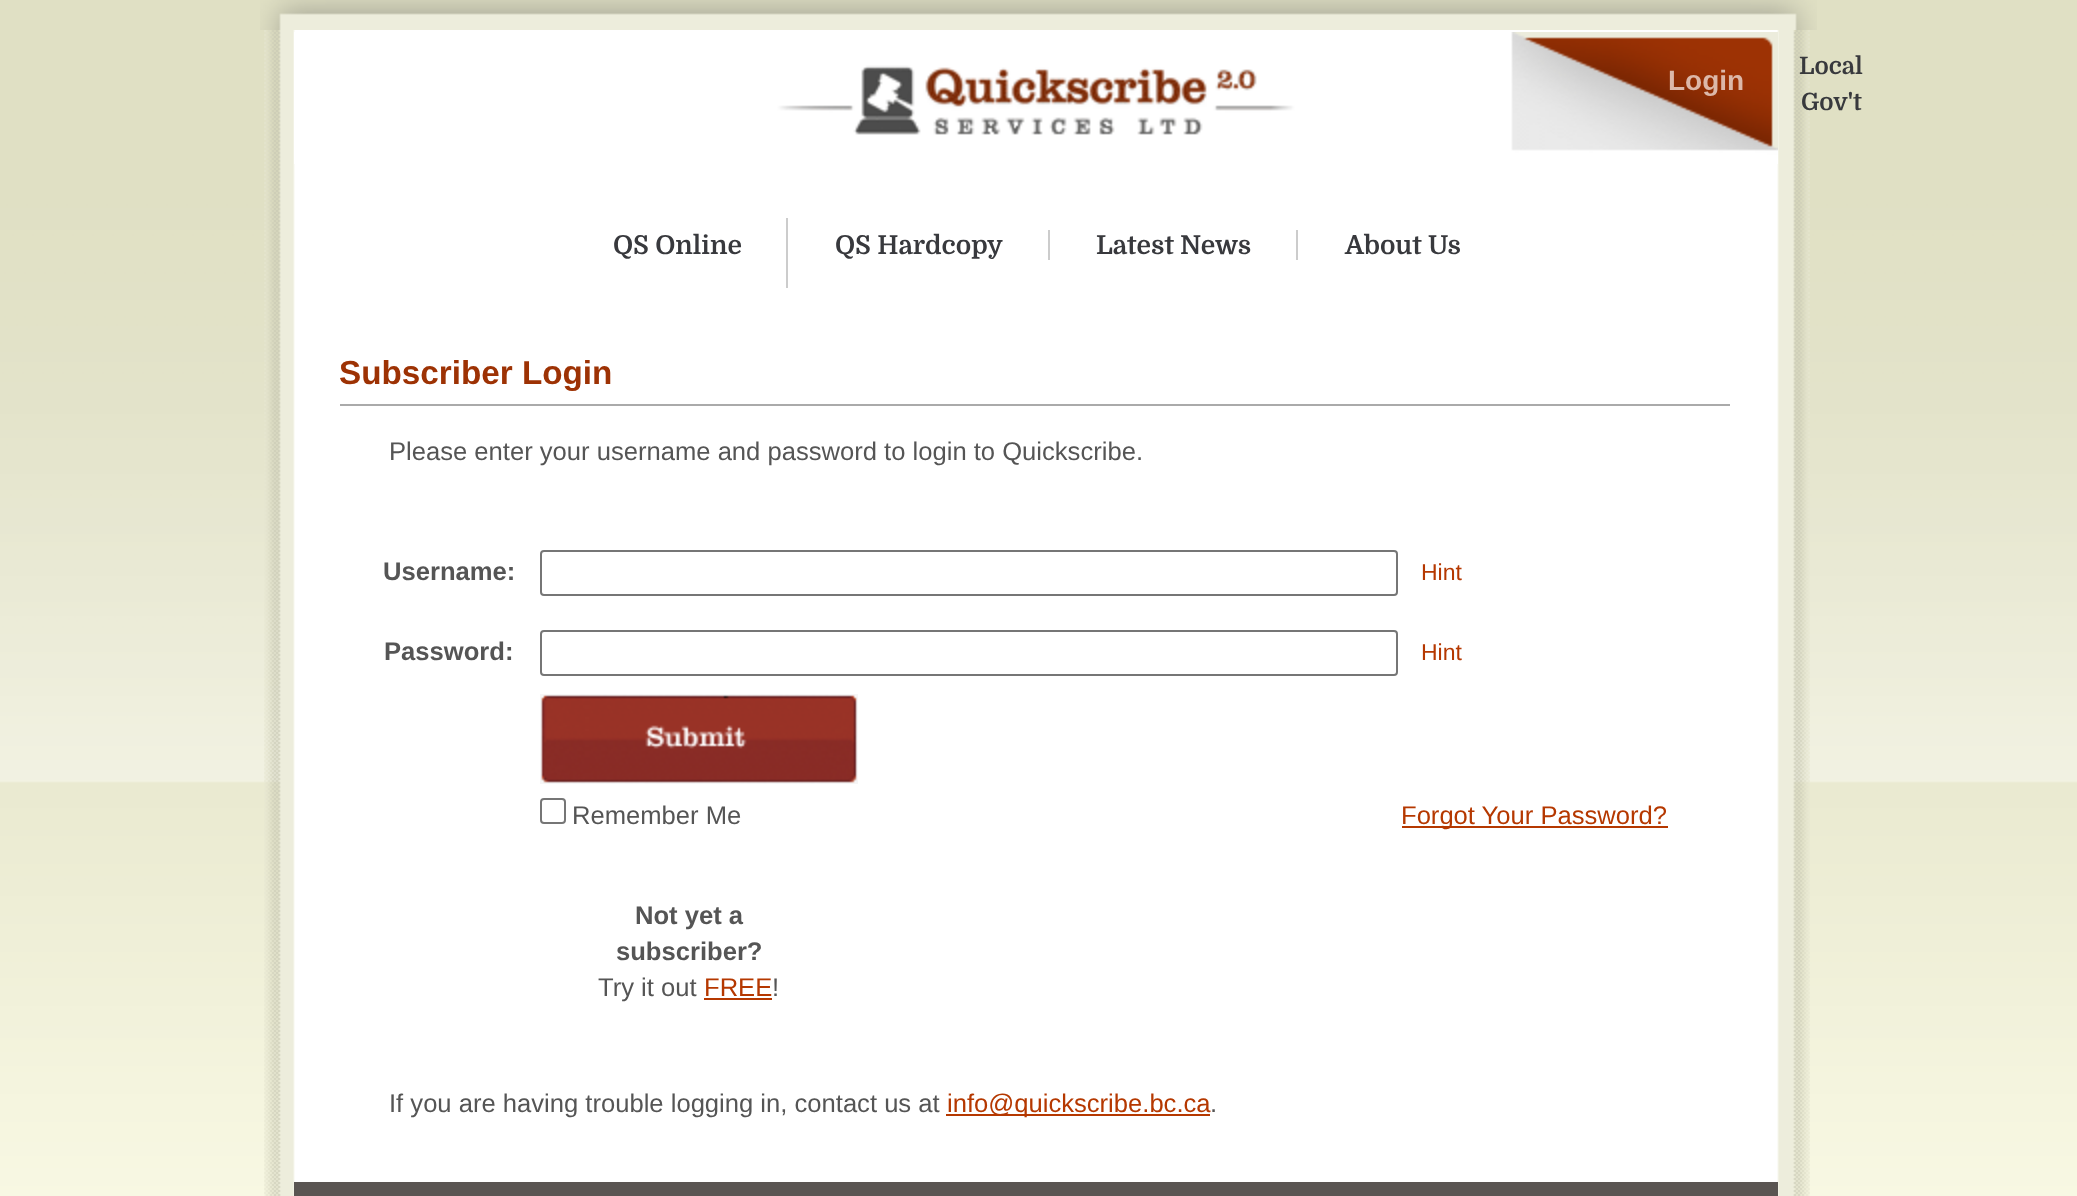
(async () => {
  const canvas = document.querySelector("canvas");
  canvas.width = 2077;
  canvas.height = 1196;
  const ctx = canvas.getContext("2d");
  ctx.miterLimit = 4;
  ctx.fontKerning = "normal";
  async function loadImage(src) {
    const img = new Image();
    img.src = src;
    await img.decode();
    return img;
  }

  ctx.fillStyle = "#ffffff";
  ctx.fillRect(0, 0, 2077, 1196);
  ctx.drawImage(await loadImage("img/1.png"), 0, 0, 2077, 1196);
  ctx.drawImage(await loadImage("img/2.png"), 264, 30, 1546, 260);
  ctx.drawImage(await loadImage("img/3.png"), 260, 0, 1557, 30);
  ctx.drawImage(await loadImage("img/4.png"), 294, 32, 1484, 132);
  for (const [x, y, w, h, color] of [
    [786, 218, 2, 70, "#cccccc"],
    [1048, 230, 2, 30, "#cccccc"],
    [1296, 230, 2, 30, "#cccccc"],
  ]) {
    ctx.fillStyle = color;
    ctx.fillRect(x, y, w, h);
  }
  ctx.drawImage(await loadImage("img/5.png"), 264, 290, 1546, 906);
  ctx.fillStyle = "#aaaaaa";
  ctx.fillRect(340, 404, 1390, 2);
  ctx.beginPath();
  ctx.roundRect(541, 551, 856, 44, 3);
  ctx.strokeStyle = "#767676";
  ctx.lineWidth = 2;
  ctx.stroke();
  ctx.beginPath();
  ctx.roundRect(541, 631, 856, 44, 3);
  ctx.stroke();
  ctx.drawImage(await loadImage("img/6.png"), 540, 694, 318, 90);
  ctx.beginPath();
  ctx.roundRect(541, 799, 24, 24, 3);
  ctx.stroke();
  for (const [x, y, w, h, color] of [
    [1402, 826, 266, 2, "#b53800"],
    [704, 998, 68, 2, "#b53800"],
    [946, 1114, 264, 2, "#b53800"],
    [294, 1182, 1484, 14, "#5a5552"],
  ]) {
    ctx.fillStyle = color;
    ctx.fillRect(x, y, w, h);
  }
  ctx.font = "bold 24px Domine";
  ctx.fillStyle = "#38393d";
  ctx.fillText("Local", 1799, 74);
  ctx.fillText("Gov't", 1801, 110);
  ctx.font = "bold 28px Liberation Sans";
  ctx.fillStyle = "#dcb8a9";
  ctx.fillText("Login", 1668, 90);
  ctx.font = "bold 26px Domine";
  ctx.fillStyle = "#38393d";
  for (const [text, x, y] of [
    ["QS Online", 613, 254],
    ["QS Hardcopy", 835, 254],
    ["Latest News", 1096, 254],
    ["About Us", 1345, 254],
  ]) {
    ctx.fillText(text, x, y);
  }
  ctx.font = "bold 33.25px Liberation Sans";
  ctx.fillStyle = "#9d3204";
  ctx.fillText("Subscriber Login", 339, 384);
  ctx.font = "25.6px Liberation Sans";
  ctx.fillStyle = "#555555";
  ctx.fillText("Please enter your username and password to login to Quickscribe.", 389, 460);
  ctx.font = "bold 25.6px Liberation Sans";
  ctx.fillText("Username:", 383, 580);
  ctx.font = "23px Liberation Sans";
  ctx.fillStyle = "#b53800";
  ctx.fillText("Hint", 1421, 580);
  ctx.font = "bold 25.6px Liberation Sans";
  ctx.fillStyle = "#555555";
  ctx.fillText("Password:", 384, 660);
  ctx.font = "23px Liberation Sans";
  ctx.fillStyle = "#b53800";
  ctx.fillText("Hint", 1421, 660);
  ctx.font = "25.6px Liberation Sans";
  ctx.fillStyle = "#555555";
  ctx.fillText("Remember Me", 572, 824);
  ctx.fillStyle = "#b53800";
  ctx.fillText("Forgot Your Password?", 1401, 824);
  ctx.font = "bold 25.6px Liberation Sans";
  ctx.fillStyle = "#555555";
  ctx.fillText("Not yet a", 635, 924);
  ctx.fillText("subscriber?", 616, 960);
  ctx.font = "25.6px Liberation Sans";
  ctx.fillText("Try it out", 598, 996);
  ctx.fillStyle = "#b53800";
  ctx.fillText("FREE", 704, 996);
  ctx.fillStyle = "#555555";
  ctx.fillText("!", 772, 996);
  ctx.fillText("If you are having trouble logging in, contact us at", 389, 1112);
  ctx.fillStyle = "#b53800";
  ctx.fillText("info@quickscribe.bc.ca", 947, 1112);
  ctx.fillStyle = "#555555";
  ctx.fillText(".", 1210, 1112);
})();
